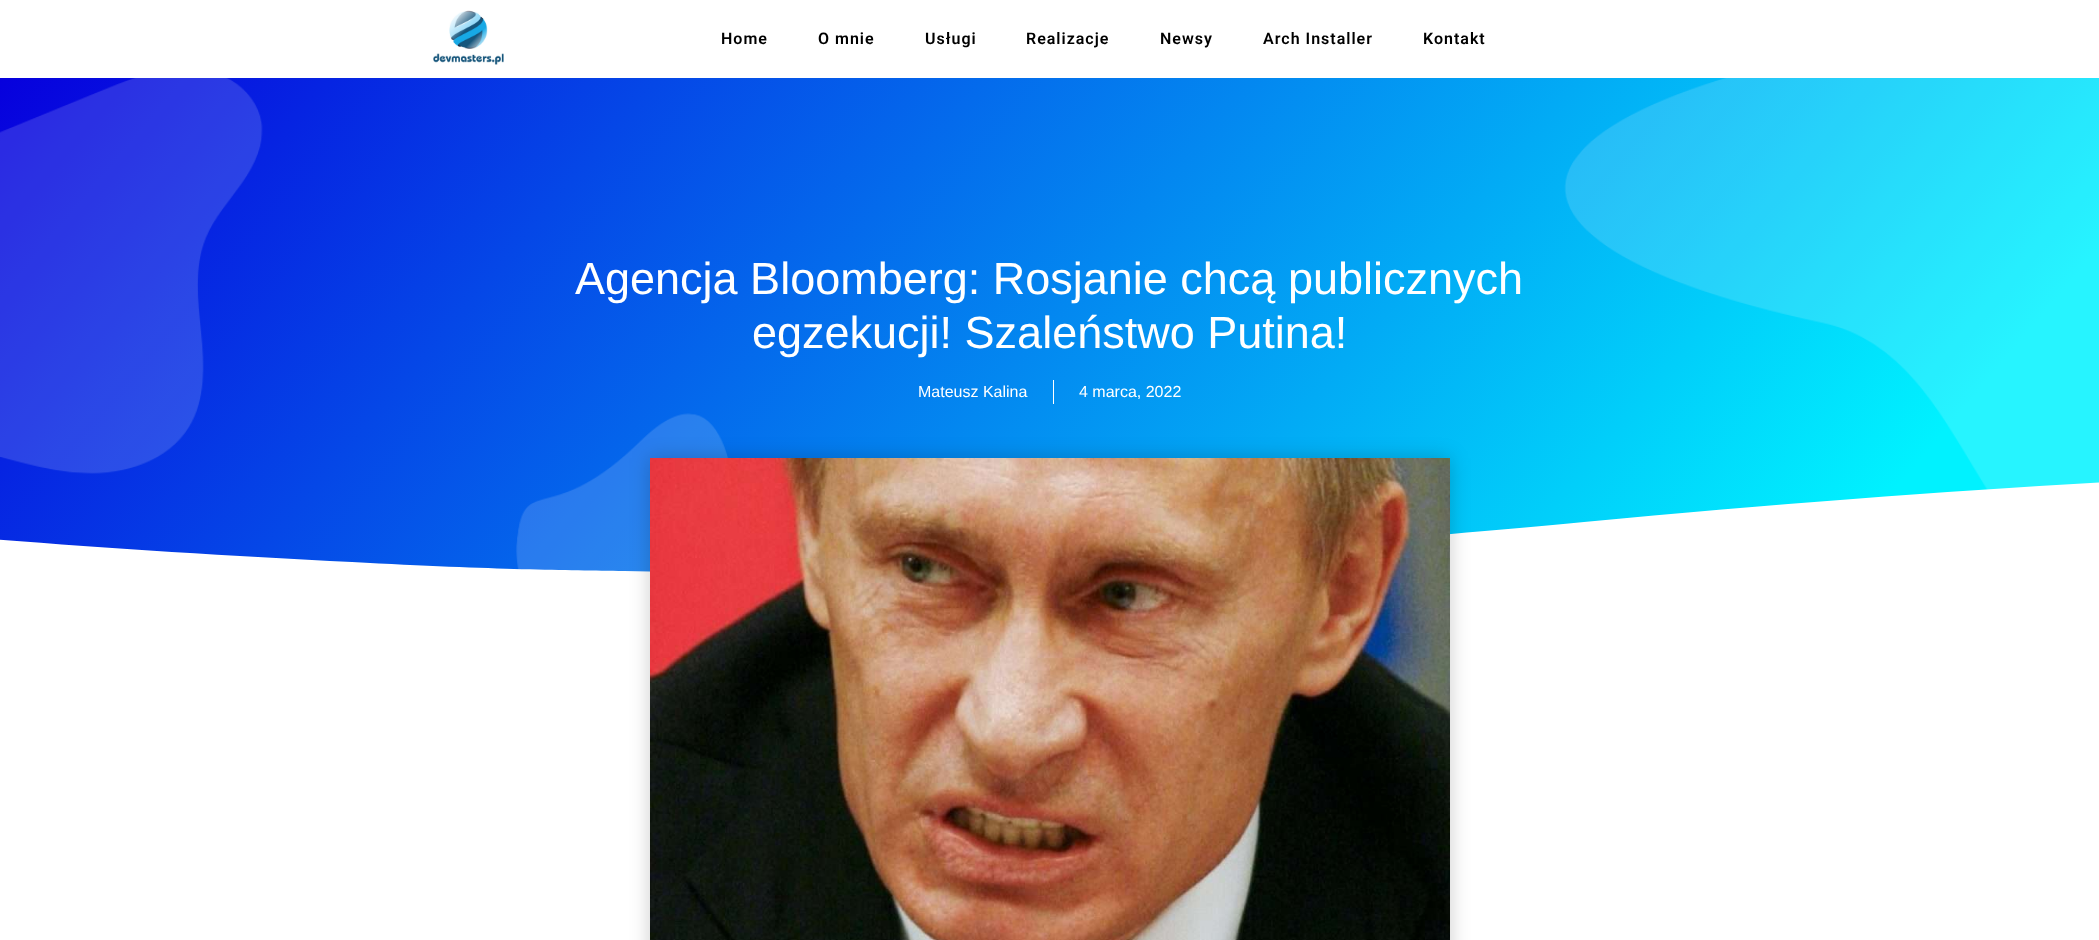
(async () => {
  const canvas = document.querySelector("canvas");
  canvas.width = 2099;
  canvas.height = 940;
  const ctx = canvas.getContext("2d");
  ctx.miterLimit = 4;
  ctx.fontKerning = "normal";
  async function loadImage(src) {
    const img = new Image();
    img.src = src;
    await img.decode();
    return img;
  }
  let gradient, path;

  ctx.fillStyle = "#ffffff";
  ctx.fillRect(0, 0, 2099, 940);
  ctx.drawImage(await loadImage("img/1.png"), 433, 10, 71, 55);
  gradient = ctx.createLinearGradient(311, -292, 1788, 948);
  gradient.addColorStop(0, "#0700dd");
  gradient.addColorStop(0.89, "#00f2ff");
  ctx.fillStyle = gradient;
  ctx.fillRect(0, 78, 2099, 494);
  ctx.drawImage(await loadImage("img/2.png"), 0, 78, 2099, 494);
  ctx.fillStyle = "#ffffff";
  ctx.fillRect(1053, 380, 1, 24);
  path = new Path2D("M624 571C747 574 905 571 1036 565C1165 559 1423 537 1584 522C1998 483 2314 469 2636 462C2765 460 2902 458 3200 465C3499 473 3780 496 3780 496V579H-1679V543C-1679 543-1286 504-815 506C-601 507-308 514-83 533C33 543 202 555 352 562C500 570 567 570 624 571Z");
  ctx.fill(path);
  ctx.fillStyle = "rgba(0, 0, 0, 0.2)";
  ctx.filter = "blur(10px)";
  ctx.beginPath();
  ctx.rect(650, 458, 800, 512);
  ctx.fill();
  ctx.filter = "none";
  ctx.drawImage(await loadImage("img/3.png"), 650, 458, 800, 482);
  ctx.letterSpacing = "1px";
  ctx.font = "600 16px Roboto";
  ctx.fillStyle = "#000000";
  for (const [text, x, y] of [
    ["Home", 721, 44],
    ["O mnie", 818, 44],
    ["Usługi", 925, 44],
    ["Realizacje", 1026, 44],
    ["Newsy", 1160, 44],
    ["Arch Installer", 1263, 44],
    ["Kontakt", 1423, 44],
  ]) {
    ctx.fillText(text, x, y);
  }
  ctx.letterSpacing = "0px";
  ctx.font = "45px Liberation Sans";
  ctx.fillStyle = "#ffffff";
  ctx.fillText("Agencja Bloomberg: Rosjanie chcą publicznych", 575, 294);
  ctx.fillText("egzekucji! Szaleństwo Putina!", 752, 348);
  ctx.font = "16px Liberation Sans";
  ctx.fillText("Mateusz Kalina", 918, 397);
  ctx.fillText("4 marca, 2022", 1079, 397);
})();
